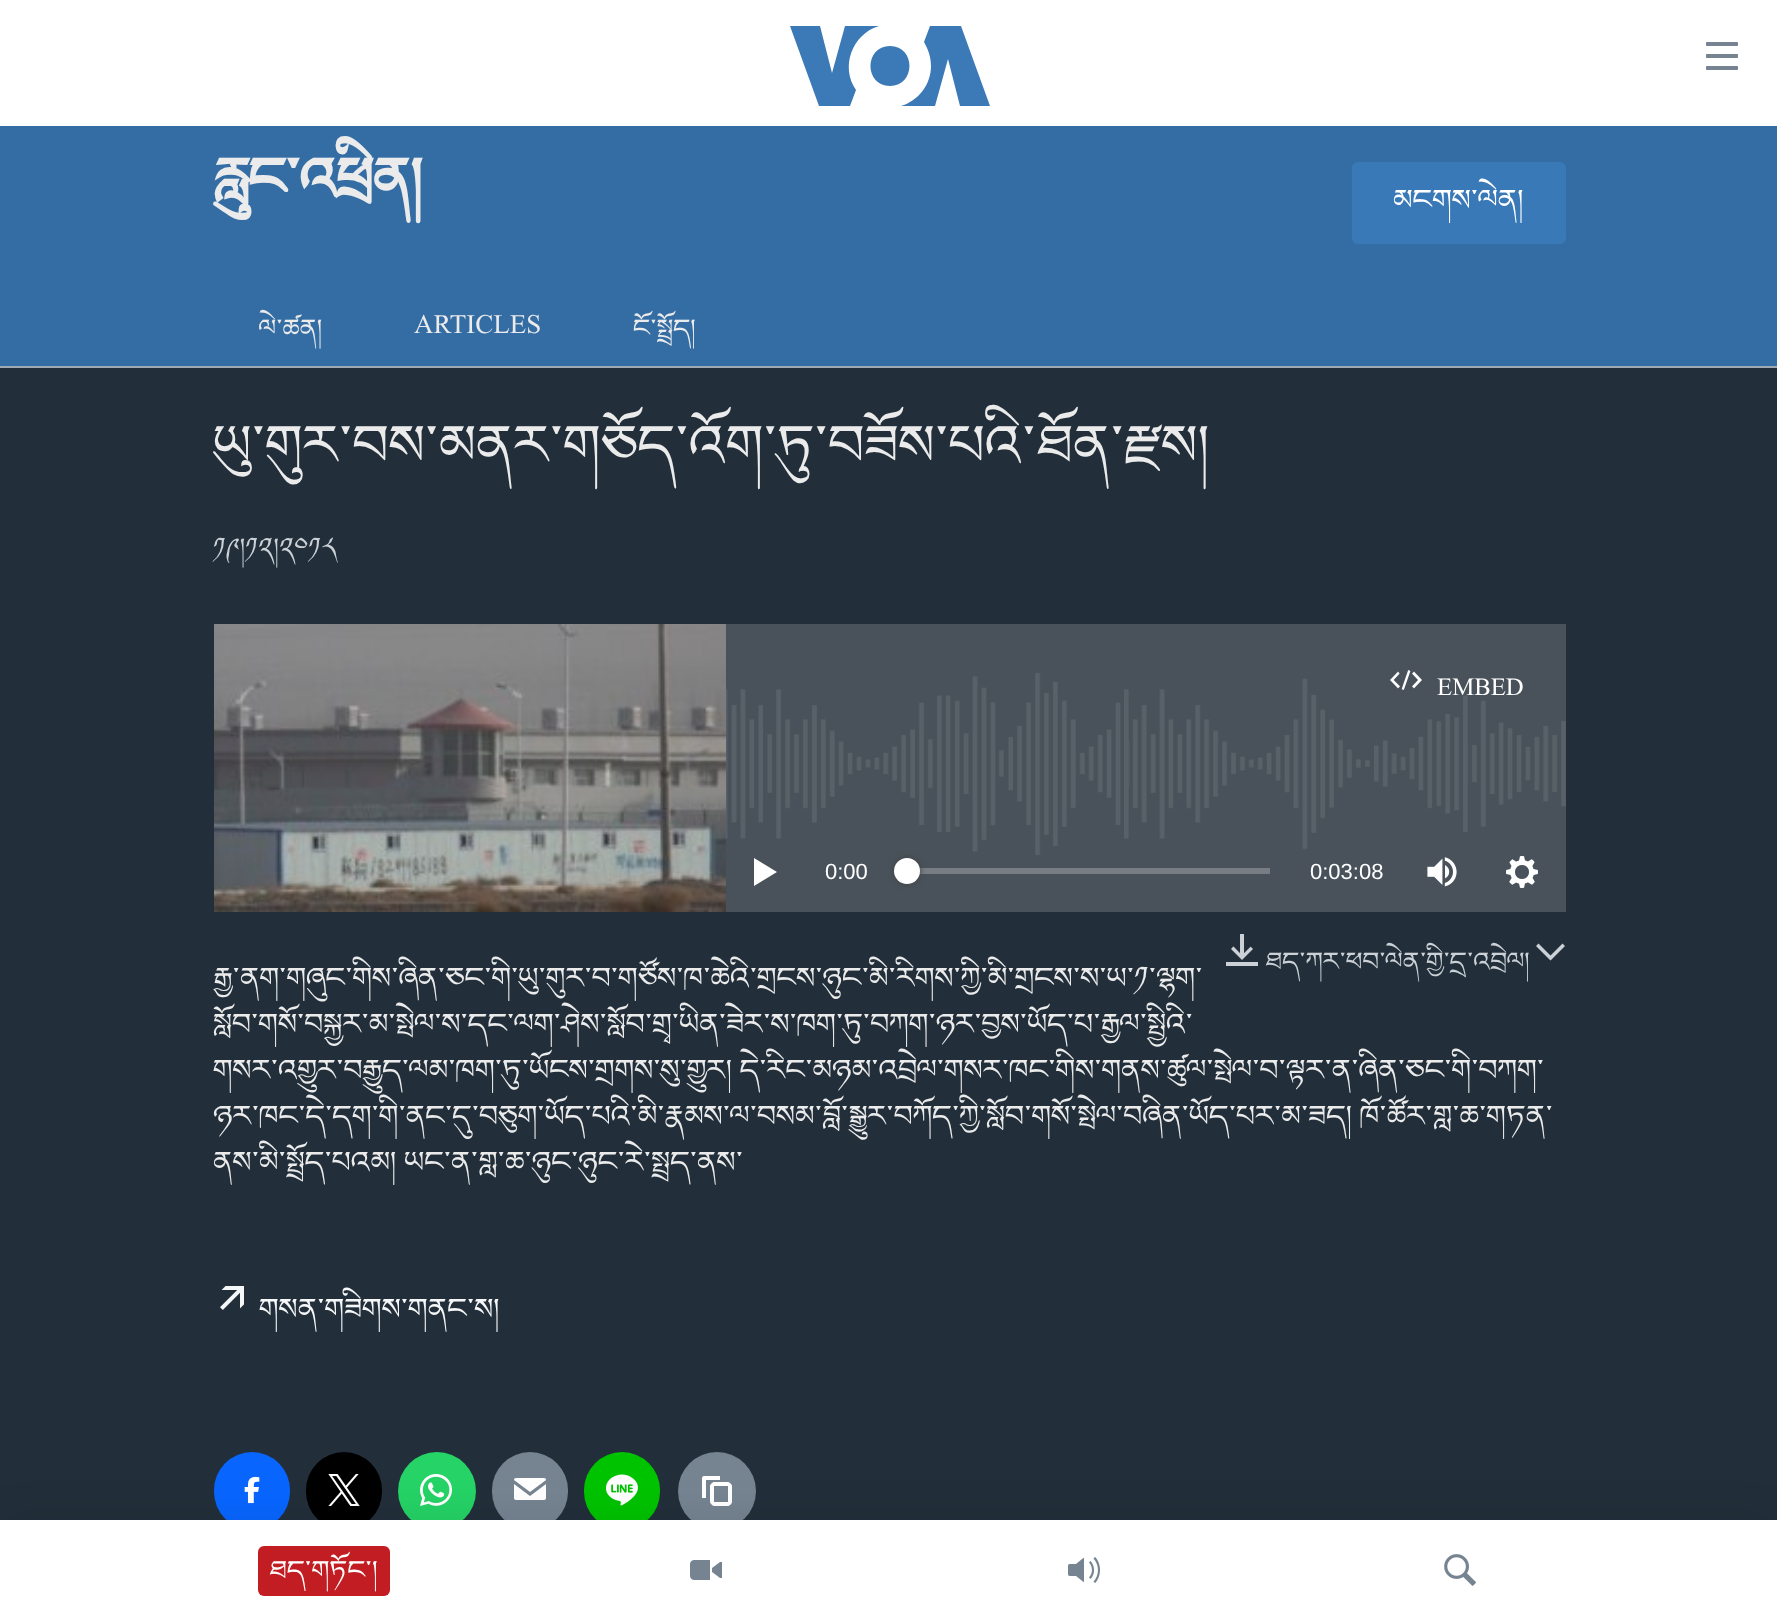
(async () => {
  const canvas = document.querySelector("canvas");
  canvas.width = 1777;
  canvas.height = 1620;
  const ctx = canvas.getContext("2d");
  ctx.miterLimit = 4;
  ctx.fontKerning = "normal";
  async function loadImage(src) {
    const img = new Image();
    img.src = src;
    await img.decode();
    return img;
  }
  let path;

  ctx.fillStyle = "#ffffff";
  ctx.fillRect(0, 0, 1777, 1620);
  ctx.fillStyle = "#346ca4";
  ctx.fillRect(0, 126, 1777, 240);
  ctx.fillStyle = "#3a79b7";
  ctx.beginPath();
  ctx.roundRect(1352, 162, 214, 82, 6);
  ctx.fill();
  for (const [x, y, w, h, color] of [
    [0, 368, 1777, 1152, "#222f3a"],
    [0, 366, 1777, 2, "#a1aab4"],
    [726, 624, 840, 288, "#49525a"],
  ]) {
    ctx.fillStyle = color;
    ctx.fillRect(x, y, w, h);
  }
  ctx.drawImage(await loadImage("img/1.png"), 726, 673, 840, 182);
  ctx.drawImage(await loadImage("img/2.png"), 214, 624, 512, 288);
  ctx.drawImage(await loadImage("img/3.png"), 1390, 670, 32, 20);
  ctx.fillStyle = "#ffffff";
  path = new Path2D("M754 886L777 872L754 858Z");
  ctx.fill(path);
  ctx.fillStyle = "#777d83";
  ctx.fillRect(919, 868, 351, 6);
  ctx.fillStyle = "#414144";
  ctx.filter = "blur(3px)";
  ctx.beginPath();
  ctx.roundRect(894, 858, 26, 26, 13);
  ctx.fill();
  ctx.filter = "none";
  ctx.fillStyle = "#ffffff";
  ctx.beginPath();
  ctx.arc(907, 871, 13, 0, Math.PI * 2);
  ctx.fill();
  ctx.drawImage(await loadImage("img/4.png"), 1427, 857, 30, 30);
  ctx.drawImage(await loadImage("img/5.png"), 1506, 856, 32, 32);
  ctx.drawImage(await loadImage("img/6.png"), 1226, 934, 32, 32);
  ctx.fillStyle = "#cbd1d6";
  path = new Path2D("M1536 946L1550.5 960.5L1565 946L1562.5 943.5L1550.5 955.5L1538.5 943.5Z");
  ctx.fill(path);
  ctx.drawImage(await loadImage("img/7.png"), 220, 1286, 24, 24);
  ctx.fillStyle = "#0866ff";
  ctx.beginPath();
  ctx.roundRect(214, 1452, 76, 78, 38);
  ctx.fill();
  ctx.drawImage(await loadImage("img/8.png"), 244, 1476, 16, 28);
  ctx.fillStyle = "#000000";
  ctx.beginPath();
  ctx.roundRect(306, 1452, 76, 78, 38);
  ctx.fill();
  ctx.drawImage(await loadImage("img/9.png"), 328, 1474, 32, 32);
  ctx.fillStyle = "#25d366";
  ctx.beginPath();
  ctx.arc(437, 1491, 39, 0, Math.PI * 2);
  ctx.fill();
  ctx.drawImage(await loadImage("img/10.png"), 420, 1474, 32, 32);
  ctx.fillStyle = "#768492";
  ctx.beginPath();
  ctx.roundRect(492, 1452, 76, 78, 38);
  ctx.fill();
  ctx.drawImage(await loadImage("img/11.png"), 514, 1478, 32, 22);
  ctx.fillStyle = "#00c300";
  ctx.beginPath();
  ctx.roundRect(584, 1452, 76, 78, 38);
  ctx.fill();
  ctx.drawImage(await loadImage("img/12.png"), 606, 1474, 32, 32);
  ctx.fillStyle = "#768492";
  ctx.beginPath();
  ctx.arc(717, 1491, 39, 0, Math.PI * 2);
  ctx.fill();
  ctx.drawImage(await loadImage("img/13.png"), 702, 1476, 30, 30);
  ctx.fillStyle = "#3b79b7";
  path = new Path2D("M856 90L850 106H819L790 26H820L832 73L845 26H879C852 34 840 67 856 90ZM890 46C864 46 864 86 890 86C916 86 916 46 890 46ZM931 66C931 85 918 101 901 106H935L948 59L960 106H990L961 26H930L924 42C928 49 931 57 931 66Z");
  ctx.fill(path);
  ctx.drawImage(await loadImage("img/14.png"), 1706, 42, 32, 28);
  ctx.fillStyle = "rgba(0, 0, 0, 0.1)";
  ctx.filter = "blur(20px)";
  ctx.beginPath();
  ctx.rect(0, 1520, 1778, 100);
  ctx.fill();
  ctx.filter = "none";
  ctx.fillStyle = "#ffffff";
  ctx.fillRect(0, 1520, 1777, 100);
  ctx.fillStyle = "#c11d22";
  ctx.beginPath();
  ctx.roundRect(258, 1546, 132, 50, 6);
  ctx.fill();
  ctx.drawImage(await loadImage("img/15.png"), 690, 1560, 32, 20);
  ctx.drawImage(await loadImage("img/16.png"), 1068, 1557, 32, 26);
  ctx.drawImage(await loadImage("img/17.png"), 1444, 1554, 32, 32);
  ctx.font = "bold 87.4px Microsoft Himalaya";
  ctx.fillStyle = "#ebebeb";
  ctx.fillText("རླུང་འཕྲིན།", 213, 189);
  ctx.font = "46px Microsoft Himalaya";
  ctx.fillStyle = "#ffffff";
  ctx.fillText("མངགས་ལེན།", 1393, 205);
  ctx.font = "40.25px Microsoft Himalaya";
  ctx.fillStyle = "#ebebeb";
  for (const [text, x, y] of [
    ["ལེ་ཚན།", 259, 333],
    ["ARTICLES", 414, 333],
    ["ངོ་སྤྲོད།", 633, 333],
  ]) {
    ctx.fillText(text, x, y);
  }
  ctx.font = "87.4px Microsoft Himalaya";
  ctx.fillText("ཡུ་གུར་བས་མནར་གཅོད་འོག་ཏུ་བཟོས་པའི་ཐོན་རྫས།", 213, 455);
  ctx.font = "40.25px Microsoft Himalaya";
  ctx.fillStyle = "#cbd1d6";
  ctx.fillText("༡༩།༡༢།༢༠༡༨", 213, 552);
  ctx.font = "37px Microsoft Himalaya";
  ctx.fillStyle = "#ffffff";
  ctx.fillText("EMBED", 1437, 695);
  ctx.font = "22px Liberation Sans";
  ctx.fillText("0:00", 825, 879);
  ctx.fillText("0:03:08", 1310, 879);
  ctx.font = "40.25px Microsoft Himalaya";
  ctx.fillStyle = "#cbd1d6";
  ctx.fillText("ཐད་ཀར་ཕབ་ལེན་གྱི་དྲ་འབྲེལ།", 1265, 966);
  ctx.font = "46px Microsoft Himalaya";
  ctx.fillStyle = "#ebebeb";
  for (const [text, x, y] of [
    ["རྒྱ་ནག་གཞུང་གིས་ཞིན་ཅང་གི་ཡུ་གུར་བ་གཙོས་ཁ་ཆེའི་གྲངས་ཉུང་མི་རིགས་ཀྱི་མི་གྲངས་ས་ཡ་༡་ལྷག་", 213, 983],
    ["སློབ་གསོ་བསྐྱར་མ་སྤེལ་ས་དང་ལག་ཤེས་སློབ་གྲྭ་ཡིན་ཟེར་ས་ཁག་ཏུ་བཀག་ཉར་བྱས་ཡོད་པ་རྒྱལ་སྤྱིའི་", 213, 1029],
    ["གསར་འགྱུར་བརྒྱུད་ལམ་ཁག་ཏུ་ཡོངས་གྲགས་སུ་གྱུར། དེ་རིང་མཉམ་འབྲེལ་གསར་ཁང་གིས་གནས་ཚུལ་སྤེལ་བ་ལྟར་ན་ཞིན་ཅང་གི་བཀག་", 213, 1075],
    ["ཉར་ཁང་དེ་དག་གི་ནང་དུ་བཅུག་ཡོད་པའི་མི་རྣམས་ལ་བསམ་བློ་སྒྱུར་བཀོད་ཀྱི་སློབ་གསོ་སྤེལ་བཞིན་ཡོད་པར་མ་ཟད། ཁོ་ཚོར་གླ་ཆ་གཏན་", 213, 1121],
    ["ནས་མི་སྤྲོད་པའམ། ཡང་ན་གླ་ཆ་ཉུང་ཉུང་རེ་སྤྲད་ནས་", 213, 1167],
  ]) {
    ctx.fillText(text, x, y);
  }
  ctx.fillStyle = "#f6f7f8";
  ctx.fillText("གསན་གཟིགས་གནང་ས།", 259, 1314);
  ctx.font = "42px Microsoft Himalaya";
  ctx.fillStyle = "#ffffff";
  ctx.fillText("ཐད་གཏོང་།", 269, 1575);
})();
